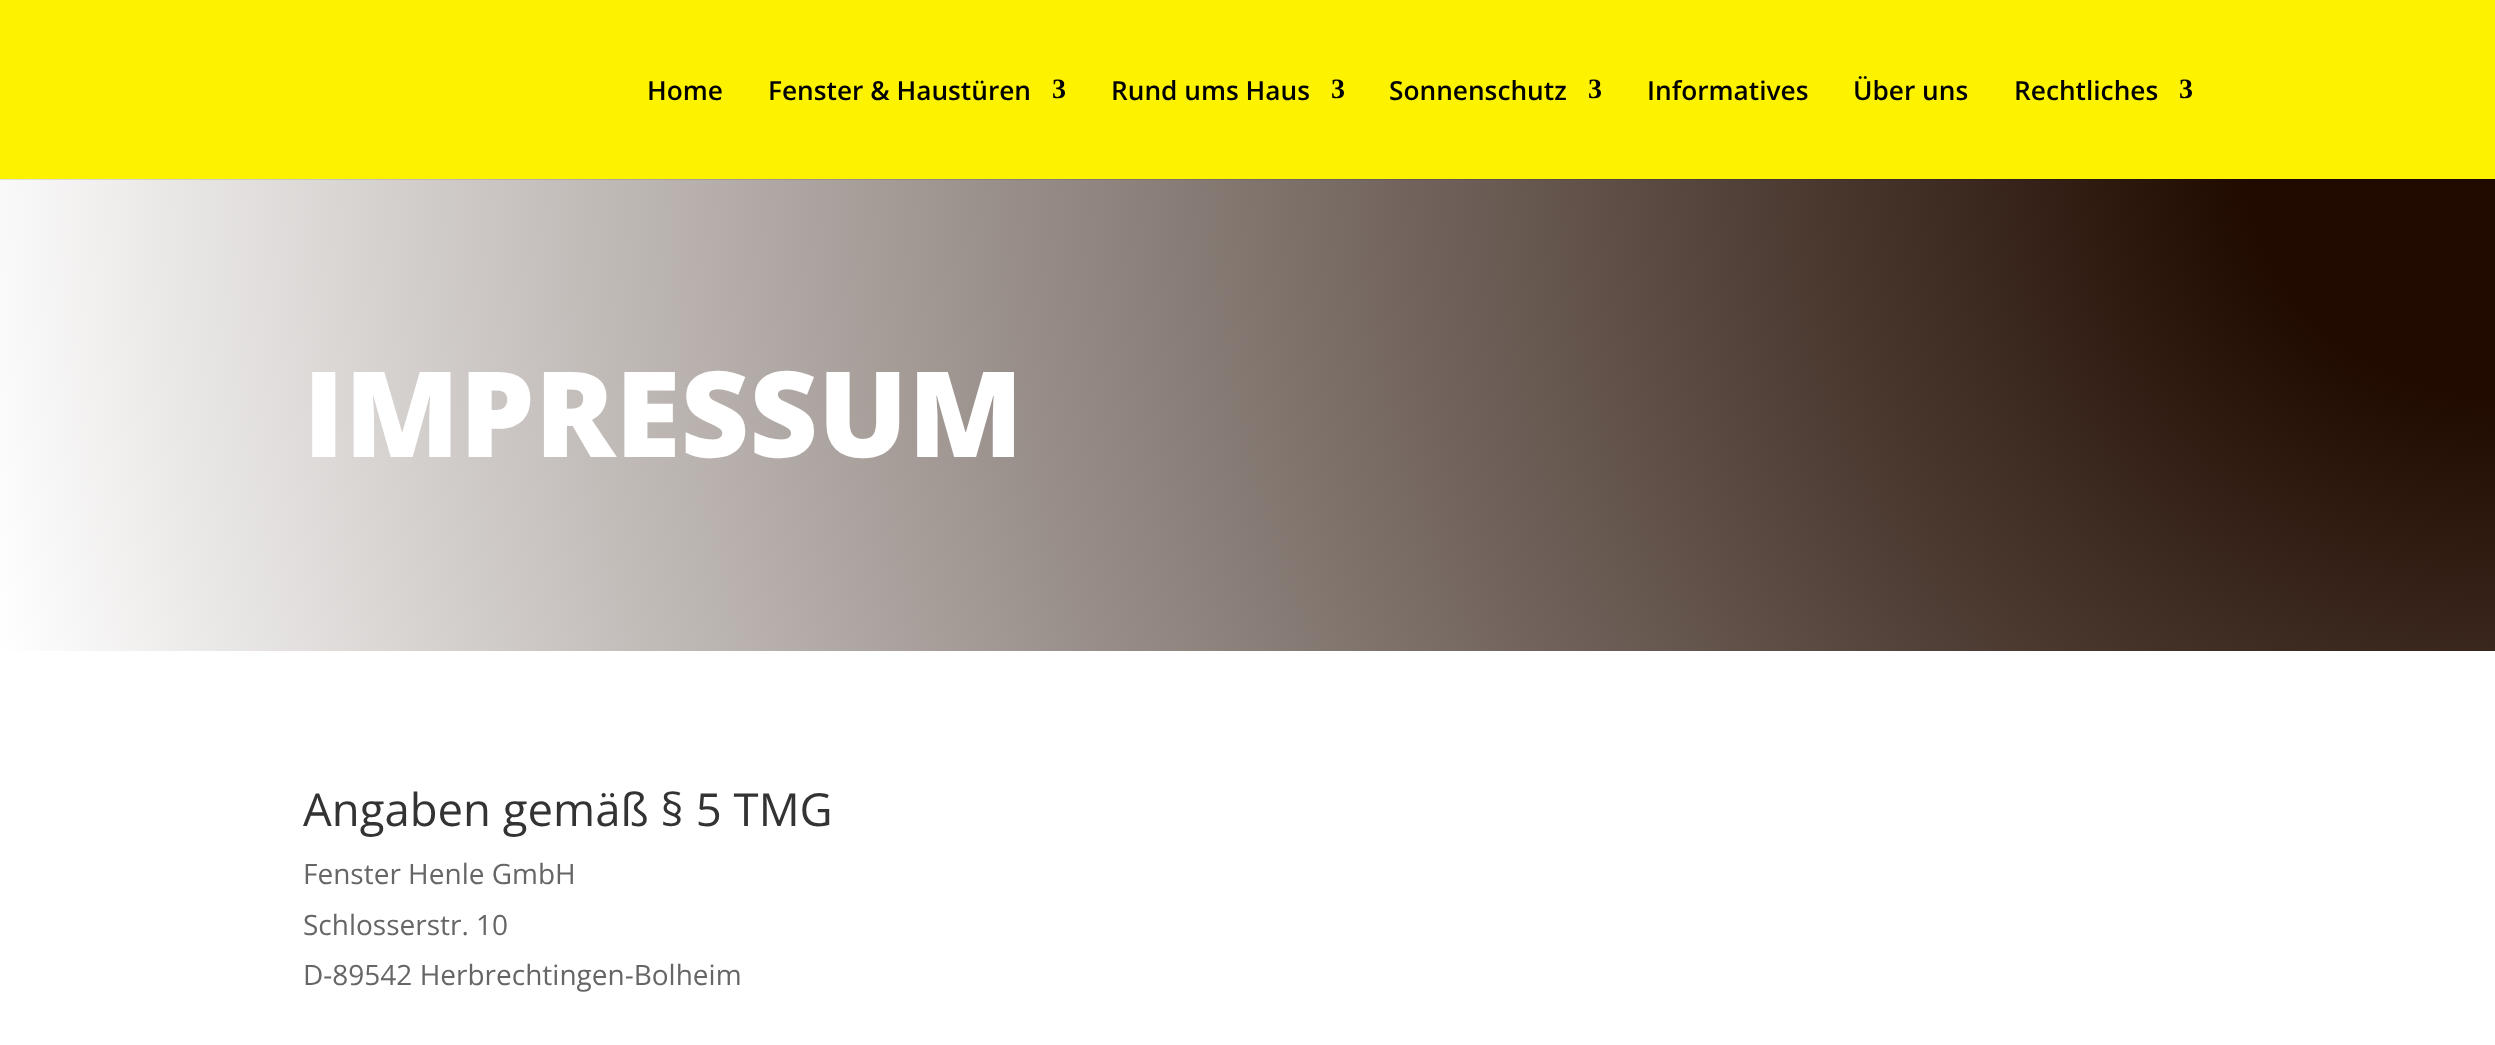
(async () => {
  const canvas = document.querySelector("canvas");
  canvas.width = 2495;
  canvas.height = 1045;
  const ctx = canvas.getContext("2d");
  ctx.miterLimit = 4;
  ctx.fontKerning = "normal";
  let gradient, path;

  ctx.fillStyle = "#ffffff";
  ctx.fillRect(0, 0, 2495, 1045);
  gradient = ctx.createRadialGradient(2496, 140, 0, 2496, 140, 2547);
  gradient.addColorStop(0.1, "#210b00");
  gradient.addColorStop(1, "#ffffff");
  ctx.fillStyle = gradient;
  ctx.fillRect(0, 179, 2495, 472);
  ctx.fillStyle = "rgba(0, 0, 0, 0.1)";
  path = new Path2D("M0 178V180H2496V2V178Z");
  ctx.fill(path);
  ctx.fillStyle = "#fdf200";
  ctx.fillRect(0, 0, 2495, 179);
  ctx.font = "600 26.25px Open Sans";
  ctx.fillStyle = "#000000";
  ctx.fillText("Home", 647, 100);
  ctx.fillText("Fenster & Haustüren", 768, 100);
  ctx.font = "bold 28px Liberation Serif";
  ctx.fillText("3", 1052, 98);
  ctx.font = "600 26.25px Open Sans";
  ctx.fillText("Rund ums Haus", 1111, 100);
  ctx.font = "bold 28px Liberation Serif";
  ctx.fillText("3", 1331, 98);
  ctx.font = "600 26.25px Open Sans";
  ctx.fillText("Sonnenschutz", 1389, 100);
  ctx.font = "bold 28px Liberation Serif";
  ctx.fillText("3", 1588, 98);
  ctx.font = "600 26.25px Open Sans";
  for (const [text, x, y] of [
    ["Informatives", 1647, 100],
    ["Über uns", 1853, 100],
    ["Rechtliches", 2014, 100],
  ]) {
    ctx.fillText(text, x, y);
  }
  ctx.font = "bold 28px Liberation Serif";
  ctx.fillText("3", 2179, 98);
  ctx.font = "800 119px Open Sans";
  ctx.fillStyle = "#ffffff";
  ctx.fillText("IMPRESSUM", 303, 457);
  ctx.font = "45.5px Open Sans";
  ctx.fillStyle = "#333333";
  ctx.fillText("Angaben gemäß § 5 TMG", 303, 826);
  ctx.font = "28px Open Sans";
  ctx.fillStyle = "#666666";
  for (const [text, x, y] of [
    ["Fenster Henle GmbH", 303, 884],
    ["Schlosserstr. 10", 303, 935],
    ["D-89542 Herbrechtingen-Bolheim", 303, 985],
  ]) {
    ctx.fillText(text, x, y);
  }
})();
